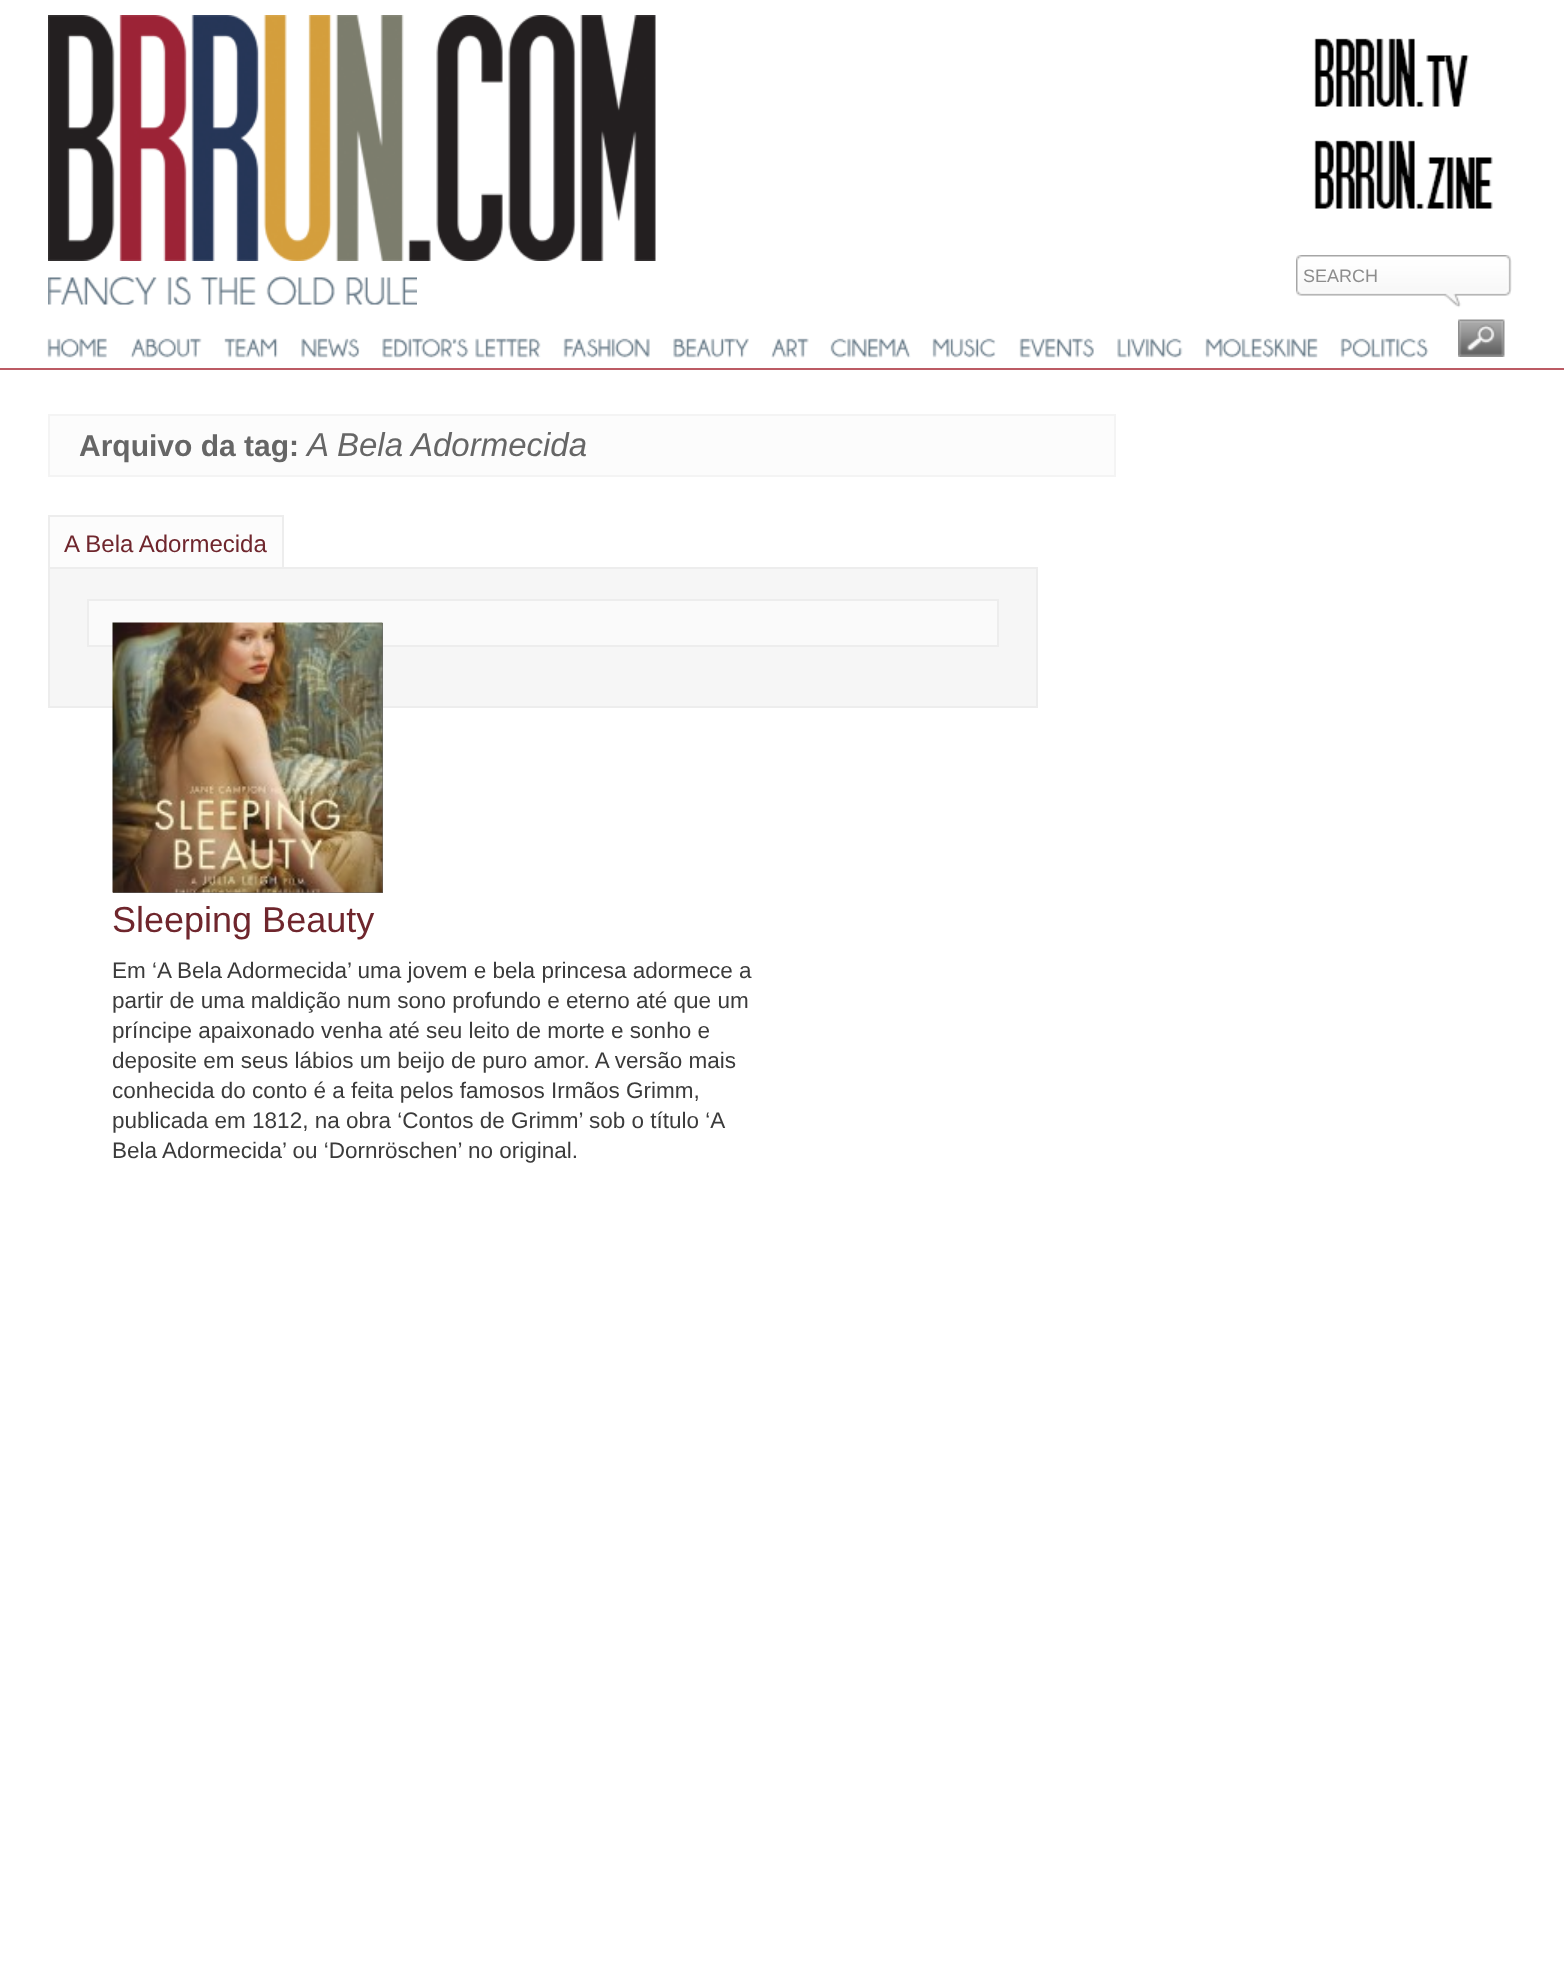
(async () => {
  const canvas = document.querySelector("canvas");
  canvas.width = 1564;
  canvas.height = 1975;
  const ctx = canvas.getContext("2d");
  ctx.miterLimit = 4;
  ctx.fontKerning = "normal";
  async function loadImage(src) {
    const img = new Image();
    img.src = src;
    await img.decode();
    return img;
  }

  ctx.fillStyle = "#ffffff";
  ctx.fillRect(0, 0, 1564, 1975);
  ctx.fillStyle = "#bc5b64";
  ctx.fillRect(0, 368, 1564, 2);
  ctx.drawImage(await loadImage("img/1.png"), 48, 15, 608, 246);
  ctx.drawImage(await loadImage("img/2.png"), 48, 276, 369, 29);
  ctx.drawImage(await loadImage("img/3.png"), 1314, 38, 155, 69);
  ctx.drawImage(await loadImage("img/4.png"), 1314, 140, 179, 69);
  ctx.drawImage(await loadImage("img/5.png"), 1458, 319, 47, 38);
  ctx.drawImage(await loadImage("img/6.png"), 1296, 255, 216, 53);
  ctx.drawImage(await loadImage("img/7.png"), 47, 338, 60, 20);
  ctx.drawImage(await loadImage("img/8.png"), 130, 338, 72, 20);
  ctx.drawImage(await loadImage("img/9.png"), 224, 338, 54, 20);
  ctx.drawImage(await loadImage("img/10.png"), 301, 338, 59, 20);
  ctx.drawImage(await loadImage("img/11.png"), 382, 338, 87, 20);
  ctx.drawImage(await loadImage("img/12.png"), 475, 338, 66, 20);
  ctx.drawImage(await loadImage("img/13.png"), 563, 338, 87, 20);
  ctx.drawImage(await loadImage("img/14.png"), 673, 338, 76, 20);
  ctx.drawImage(await loadImage("img/15.png"), 771, 338, 38, 20);
  ctx.drawImage(await loadImage("img/16.png"), 830, 338, 81, 20);
  ctx.drawImage(await loadImage("img/17.png"), 932, 338, 64, 20);
  ctx.drawImage(await loadImage("img/18.png"), 1019, 338, 75, 20);
  ctx.drawImage(await loadImage("img/19.png"), 1117, 338, 66, 20);
  ctx.drawImage(await loadImage("img/20.png"), 1205, 338, 113, 20);
  ctx.drawImage(await loadImage("img/21.png"), 1340, 338, 89, 20);
  ctx.fillStyle = "#fcfcfc";
  ctx.beginPath();
  ctx.rect(49, 415, 1066, 61);
  ctx.fill();
  ctx.strokeStyle = "#f4f4f4";
  ctx.lineWidth = 2;
  ctx.stroke();
  for (const [x, y, w, h, color] of [
    [50, 517, 232, 50, "#fcfcfc"],
    [48, 515, 236, 2, "#ededed"],
    [282, 515, 2, 57, "#ededed"],
    [48, 515, 2, 57, "#ededed"],
  ]) {
    ctx.fillStyle = color;
    ctx.fillRect(x, y, w, h);
  }
  ctx.fillStyle = "#f6f6f6";
  ctx.beginPath();
  ctx.rect(49, 568, 988, 139);
  ctx.fill();
  ctx.strokeStyle = "#ededed";
  ctx.stroke();
  ctx.fillStyle = "#fafafa";
  ctx.beginPath();
  ctx.rect(88, 600, 910, 46);
  ctx.fill();
  ctx.stroke();
  ctx.fillStyle = "#666666";
  ctx.fillRect(113, 623, 270, 270);
  ctx.drawImage(await loadImage("img/22.png"), 112, 622, 271, 271);
  ctx.font = "18px Liberation Sans";
  ctx.fillStyle = "#8d8d8d";
  ctx.fillText("SEARCH", 1303, 282);
  ctx.font = "bold 30px Liberation Sans";
  ctx.fillStyle = "#666666";
  ctx.fillText("Arquivo da tag:", 79, 456);
  ctx.font = "italic 33px Liberation Sans";
  ctx.fillText("A Bela Adormecida", 307, 456);
  ctx.font = "24px Liberation Sans";
  ctx.fillStyle = "#6f262d";
  ctx.fillText("A Bela Adormecida", 64, 552);
  ctx.font = "36px Liberation Sans";
  ctx.fillText("Sleeping Beauty", 112, 932);
  ctx.font = "22.5px Liberation Sans";
  ctx.fillStyle = "#3b3b3b";
  for (const [text, x, y] of [
    ["Em ‘A Bela Adormecida’ uma jovem e bela princesa adormece a", 112, 978],
    ["partir de uma maldição num sono profundo e eterno até que um", 112, 1008],
    ["príncipe apaixonado venha até seu leito de morte e sonho e", 112, 1038],
    ["deposite em seus lábios um beijo de puro amor. A versão mais", 112, 1068],
    ["conhecida do conto é a feita pelos famosos Irmãos Grimm,", 112, 1098],
    ["publicada em 1812, na obra ‘Contos de Grimm’ sob o título ‘A", 112, 1128],
    ["Bela Adormecida’ ou ‘Dornröschen’ no original.", 112, 1158],
  ]) {
    ctx.fillText(text, x, y);
  }
})();
